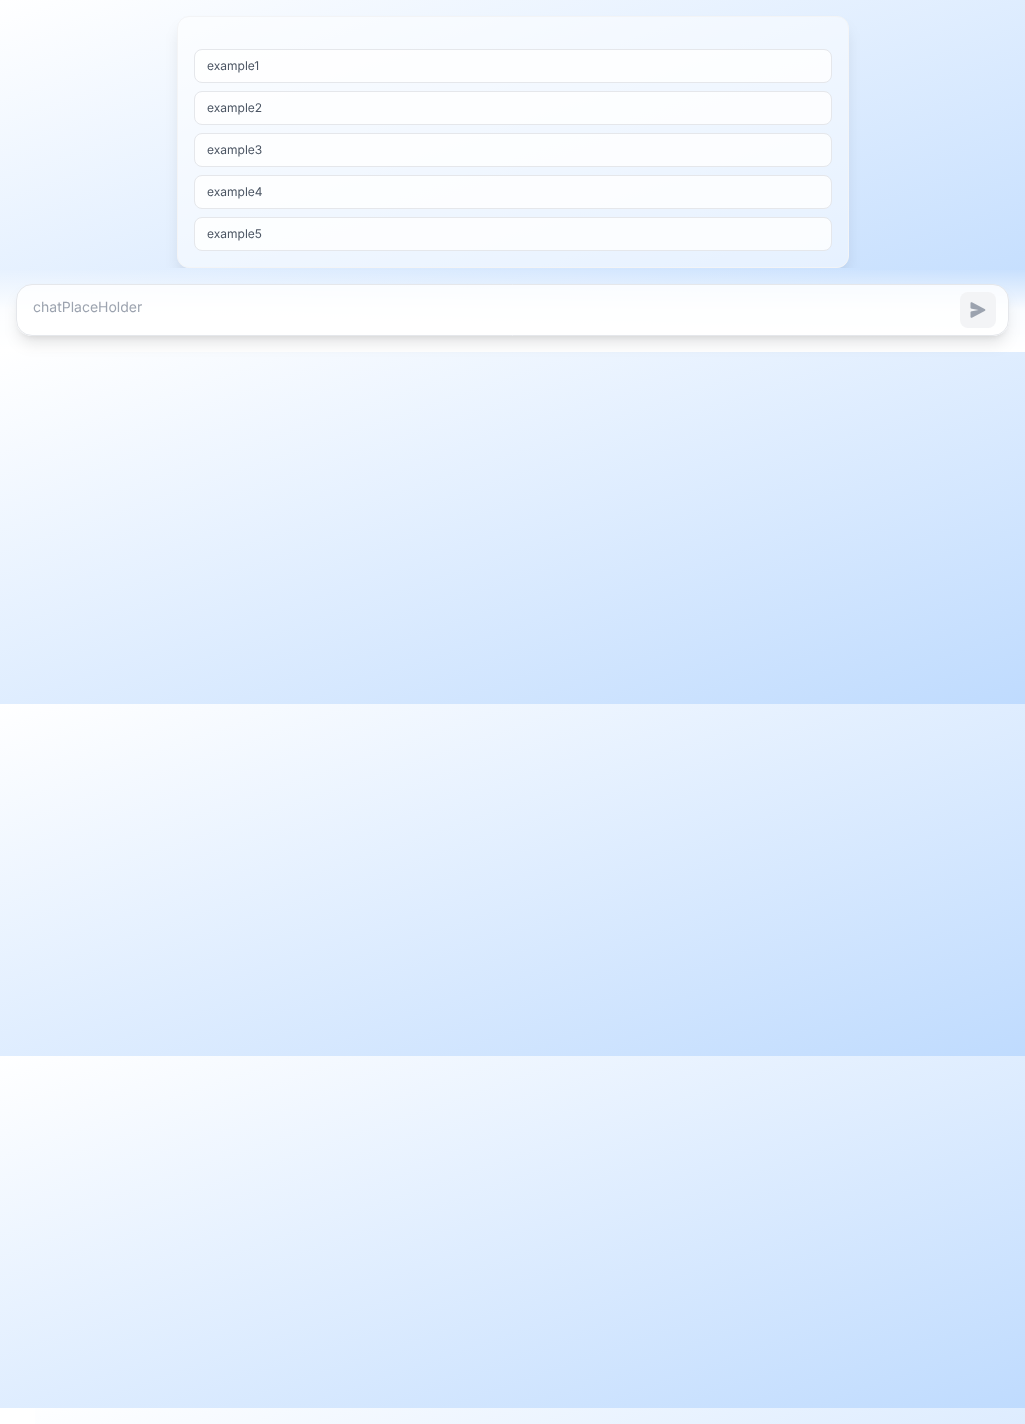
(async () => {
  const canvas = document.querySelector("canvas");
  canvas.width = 1025;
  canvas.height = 1424;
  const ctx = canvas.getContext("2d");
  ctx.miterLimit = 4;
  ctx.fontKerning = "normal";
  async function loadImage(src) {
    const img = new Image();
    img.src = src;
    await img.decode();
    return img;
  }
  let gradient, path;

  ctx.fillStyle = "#ffffff";
  ctx.fillRect(0, 0, 1025, 1424);
  gradient = ctx.createLinearGradient(404, -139, 621, 491);
  gradient.addColorStop(0, "#ffffff");
  gradient.addColorStop(1, "#bfdbfe");
  ctx.fillStyle = gradient;
  ctx.fillRect(0, 0, 1025, 350);
  gradient = ctx.createLinearGradient(404, 213, 621, 843);
  gradient.addColorStop(0, "#ffffff");
  gradient.addColorStop(1, "#bfdbfe");
  ctx.fillStyle = gradient;
  ctx.fillRect(0, 352, 1025, 352);
  gradient = ctx.createLinearGradient(404, 565, 621, 1195);
  gradient.addColorStop(0, "#ffffff");
  gradient.addColorStop(1, "#bfdbfe");
  ctx.fillStyle = gradient;
  ctx.fillRect(0, 704, 1025, 352);
  gradient = ctx.createLinearGradient(404, 917, 621, 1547);
  gradient.addColorStop(0, "#ffffff");
  gradient.addColorStop(1, "#bfdbfe");
  ctx.fillStyle = gradient;
  ctx.fillRect(0, 1056, 1025, 352);
  gradient = ctx.createLinearGradient(404, 1269, 621, 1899);
  gradient.addColorStop(0, "#ffffff");
  gradient.addColorStop(1, "#bfdbfe");
  ctx.fillStyle = gradient;
  ctx.fillRect(35, 1408, 990, 16);
  gradient = ctx.createLinearGradient(513, 352, 513, 268);
  gradient.addColorStop(0, "#ffffff");
  gradient.addColorStop(0.5, "rgba(255, 255, 255, 0.9)");
  gradient.addColorStop(1, "rgba(255, 255, 255, 0)");
  ctx.fillStyle = gradient;
  ctx.fillRect(0, 270, 1025, 80);
  ctx.save();
  ctx.beginPath();
  ctx.rect(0, 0, 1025, 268);
  ctx.clip();
  path = new Path2D("M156 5H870V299H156ZM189 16H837C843.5 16 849 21.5 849 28V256C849 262.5 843.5 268 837 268H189C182.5 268 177 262.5 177 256V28C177 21.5 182.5 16 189 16Z");
  ctx.clip(path, "evenodd");
  ctx.fillStyle = "rgba(0, 0, 0, 0.1)";
  ctx.filter = "blur(7.5px)";
  ctx.beginPath();
  ctx.roundRect(180, 29, 666, 246, 9);
  ctx.fill();
  ctx.filter = "none";
  ctx.restore();
  ctx.fillStyle = "rgba(255, 255, 255, 0.5)";
  ctx.beginPath();
  ctx.roundRect(177.5, 16.5, 671, 251, 11.5);
  ctx.fill();
  ctx.strokeStyle = "#f3f4f6";
  ctx.stroke();
  ctx.fillStyle = "rgba(255, 255, 255, 0.8)";
  ctx.beginPath();
  ctx.roundRect(194.5, 49.5, 637, 33, 7.5);
  ctx.fill();
  ctx.strokeStyle = "#e5e7eb";
  ctx.stroke();
  ctx.beginPath();
  ctx.roundRect(194.5, 91.5, 637, 33, 7.5);
  ctx.fill();
  ctx.stroke();
  ctx.beginPath();
  ctx.roundRect(194.5, 133.5, 637, 33, 7.5);
  ctx.fill();
  ctx.stroke();
  ctx.beginPath();
  ctx.roundRect(194.5, 175.5, 637, 33, 7.5);
  ctx.fill();
  ctx.stroke();
  ctx.beginPath();
  ctx.roundRect(194.5, 217.5, 637, 33, 7.5);
  ctx.fill();
  ctx.stroke();
  ctx.save();
  path = new Path2D("M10 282H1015V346H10ZM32 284H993C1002 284 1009 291 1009 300V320C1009 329 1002 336 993 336H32C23 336 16 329 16 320V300C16 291 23 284 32 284Z");
  ctx.clip(path, "evenodd");
  ctx.fillStyle = "rgba(0, 0, 0, 0.1)";
  ctx.filter = "blur(3px)";
  ctx.beginPath();
  ctx.roundRect(20, 292, 985, 44, 12);
  ctx.fill();
  ctx.filter = "none";
  ctx.restore();
  ctx.save();
  path = new Path2D("M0 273H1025V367H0ZM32 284H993C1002 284 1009 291 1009 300V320C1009 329 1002 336 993 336H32C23 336 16 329 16 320V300C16 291 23 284 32 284Z");
  ctx.clip(path, "evenodd");
  ctx.fillStyle = "rgba(0, 0, 0, 0.1)";
  ctx.filter = "blur(7.5px)";
  ctx.beginPath();
  ctx.roundRect(19, 297, 987, 46, 13);
  ctx.fill();
  ctx.filter = "none";
  ctx.restore();
  ctx.beginPath();
  ctx.roundRect(16.5, 284.5, 992, 51, 15.5);
  ctx.fill();
  ctx.stroke();
  ctx.fillStyle = "#f3f4f6";
  ctx.beginPath();
  ctx.roundRect(960, 292, 36, 36, 8);
  ctx.fill();
  ctx.drawImage(await loadImage("img/1.png"), 970, 302, 16, 16);
  ctx.font = "12px Inter";
  ctx.fillStyle = "#4b5563";
  for (const [text, x, y] of [
    ["example1", 207, 70],
    ["example2", 207, 112],
    ["example3", 207, 154],
    ["example4", 207, 196],
    ["example5", 207, 238],
  ]) {
    ctx.fillText(text, x, y);
  }
  ctx.font = "14px Inter";
  ctx.fillStyle = "#9ca3af";
  ctx.fillText("chatPlaceHolder", 33, 312);
})();
